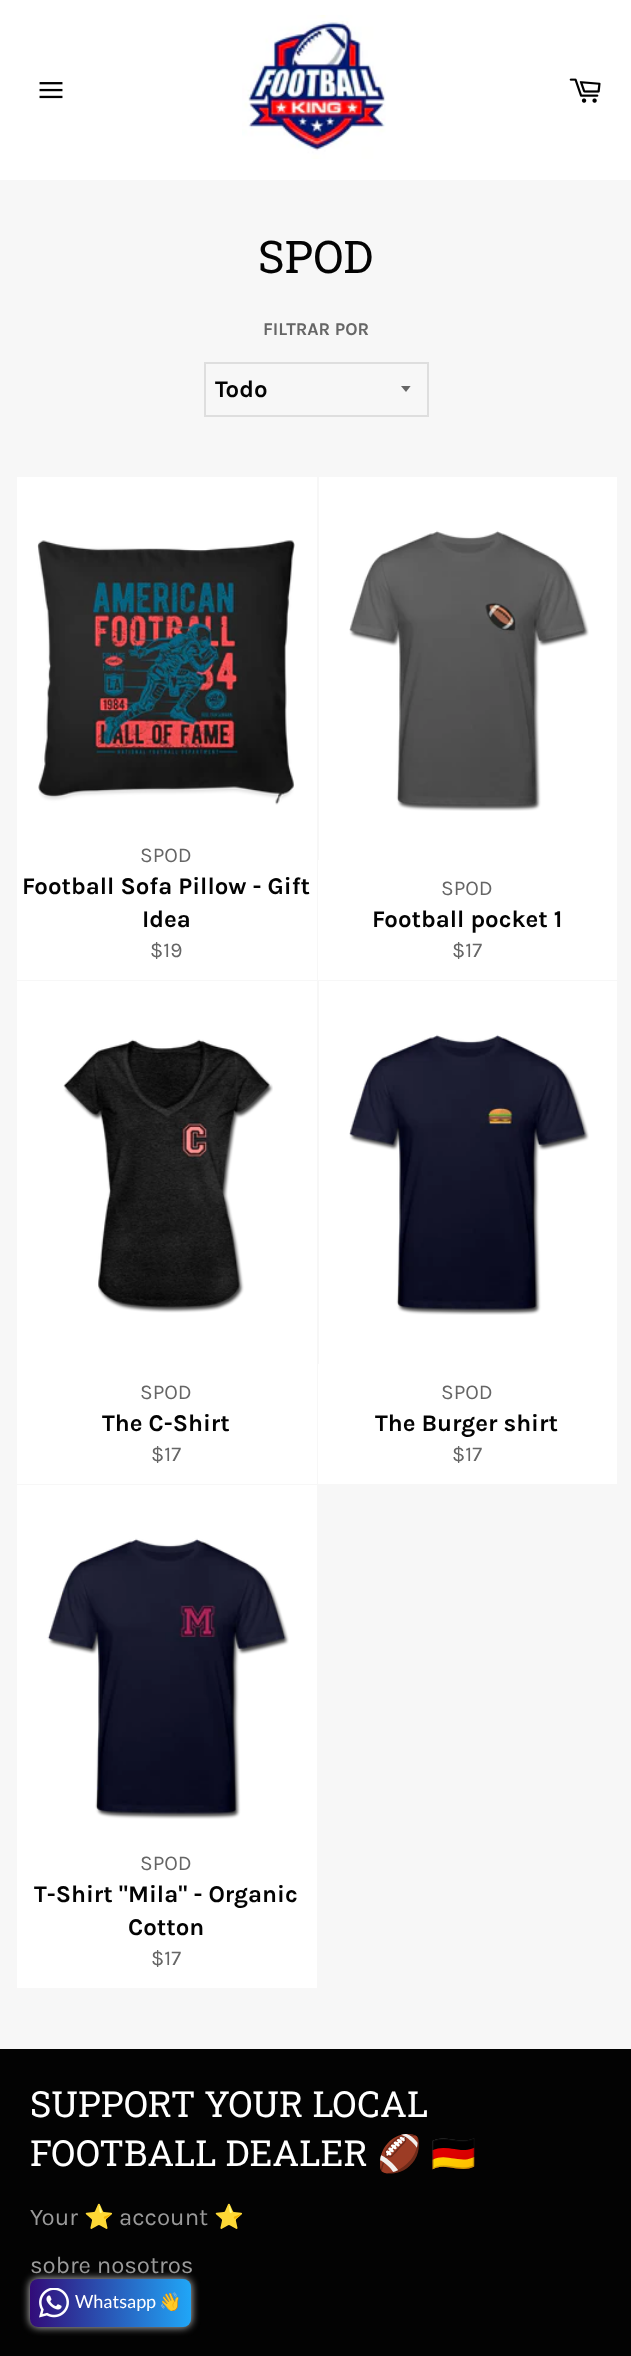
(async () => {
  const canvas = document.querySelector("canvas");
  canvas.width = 631;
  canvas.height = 2356;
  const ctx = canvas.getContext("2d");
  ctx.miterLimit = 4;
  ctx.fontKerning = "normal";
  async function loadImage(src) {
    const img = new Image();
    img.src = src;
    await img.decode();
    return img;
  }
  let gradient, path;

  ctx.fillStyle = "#f7f7f7";
  ctx.fillRect(0, 0, 631, 2356);
  ctx.fillStyle = "#ffffff";
  ctx.fillRect(0, 0, 631, 180);
  ctx.drawImage(await loadImage("img/1.png"), 39, 82, 24, 17);
  ctx.drawImage(await loadImage("img/2.png"), 242, 15, 144, 144);
  ctx.drawImage(await loadImage("img/3.png"), 569, 78, 32, 25);
  ctx.save();
  ctx.beginPath();
  ctx.rect(401, 386, 12, 7);
  ctx.clip();
  ctx.fillStyle = "#666666";
  path = new Path2D("M400.5 385.5L406 392L411 385.5Z");
  ctx.fill(path);
  ctx.restore();
  ctx.strokeStyle = "#dedede";
  ctx.lineWidth = 2;
  ctx.strokeRect(205, 363, 223, 53);
  ctx.fillRect(17, 477, 300, 503);
  ctx.drawImage(await loadImage("img/4.png"), 37, 540, 258, 265);
  ctx.fillRect(319, 477, 298, 383);
  ctx.drawImage(await loadImage("img/5.png"), 349, 530, 240, 281);
  ctx.fillRect(318, 860, 299, 120);
  ctx.fillRect(17, 981, 300, 503);
  ctx.drawImage(await loadImage("img/6.png"), 63, 1039, 210, 274);
  ctx.fillRect(319, 981, 298, 383);
  ctx.drawImage(await loadImage("img/7.png"), 349, 1034, 240, 281);
  ctx.fillRect(318, 1364, 299, 120);
  ctx.fillRect(17, 1485, 300, 503);
  ctx.drawImage(await loadImage("img/8.png"), 47, 1538, 242, 281);
  ctx.fillStyle = "#030303";
  ctx.fillRect(0, 2049, 631, 307);
  ctx.fillStyle = "#d3d3d3";
  ctx.filter = "blur(4px)";
  ctx.beginPath();
  ctx.roundRect(30, 2279, 161, 48, 8);
  ctx.fill();
  ctx.filter = "none";
  gradient = ctx.createLinearGradient(30, 2303, 191, 2303);
  gradient.addColorStop(0, "#0f3396");
  gradient.addColorStop(0, "#320c79");
  gradient.addColorStop(1, "#20a6f7");
  ctx.fillStyle = gradient;
  ctx.beginPath();
  ctx.roundRect(30, 2279, 161, 48, 8);
  ctx.fill();
  ctx.drawImage(await loadImage("img/9.png"), 39, 2288, 30, 30);
  ctx.font = "45px Roboto Slab";
  ctx.fillStyle = "#030303";
  ctx.fillText("SPOD", 258, 273);
  ctx.font = "bold 18px Karla";
  ctx.fillStyle = "#666666";
  ctx.fillText("FILTRAR POR", 263, 335);
  ctx.save();
  ctx.beginPath();
  ctx.rect(215, 372, 171, 33);
  ctx.clip();
  ctx.font = "bold 24px Karla";
  ctx.fillStyle = "#030303";
  ctx.fillText("Todo", 215, 397);
  ctx.restore();
  ctx.font = "21px Karla";
  ctx.fillText("SPOD", 140, 862);
  ctx.font = "bold 24px Karla";
  ctx.fillStyle = "#030303";
  ctx.fillText("Football Sofa Pillow - Gift", 22, 894);
  ctx.fillText("Idea", 142, 927);
  ctx.font = "21px Karla";
  ctx.fillStyle = "#666666";
  ctx.fillText("$19", 150, 957);
  ctx.fillText("SPOD", 441, 895);
  ctx.font = "bold 24px Karla";
  ctx.fillStyle = "#030303";
  ctx.fillText("Football pocket 1", 372, 927);
  ctx.font = "21px Karla";
  ctx.fillStyle = "#666666";
  ctx.fillText("$17", 452, 957);
  ctx.fillText("SPOD", 140, 1399);
  ctx.font = "bold 24px Karla";
  ctx.fillStyle = "#030303";
  ctx.fillText("The C-Shirt", 102, 1431);
  ctx.font = "21px Karla";
  ctx.fillStyle = "#666666";
  ctx.fillText("$17", 151, 1461);
  ctx.fillText("SPOD", 441, 1399);
  ctx.font = "bold 24px Karla";
  ctx.fillStyle = "#030303";
  ctx.fillText("The Burger shirt", 375, 1431);
  ctx.font = "21px Karla";
  ctx.fillStyle = "#666666";
  ctx.fillText("$17", 452, 1461);
  ctx.fillText("SPOD", 140, 1870);
  ctx.font = "bold 24px Karla";
  ctx.fillStyle = "#030303";
  ctx.fillText("T-Shirt \"Mila\" - Organic", 34, 1902);
  ctx.fillText("Cotton", 128, 1935);
  ctx.font = "21px Karla";
  ctx.fillStyle = "#666666";
  ctx.fillText("$17", 151, 1965);
  ctx.font = "36px Roboto Slab";
  ctx.fillStyle = "#ffffff";
  ctx.fillText("SUPPORT YOUR LOCAL", 30, 2117);
  ctx.fillText("FOOTBALL DEALER", 30, 2166);
  ctx.font = "36px Noto Color Emoji";
  ctx.fillText("🏈", 377, 2166);
  ctx.fillText("🇩🇪", 431, 2166);
  ctx.font = "24px Karla";
  ctx.fillStyle = "#9a9a9a";
  ctx.fillText("Your", 30, 2225);
  ctx.font = "24px Noto Color Emoji";
  ctx.fillText("⭐", 84, 2225);
  ctx.font = "24px Karla";
  ctx.fillText("account", 119, 2225);
  ctx.font = "24px Noto Color Emoji";
  ctx.fillText("⭐", 214, 2225);
  ctx.font = "24px Karla";
  ctx.fillText("sobre nosotros", 30, 2273);
  ctx.font = "18px Lato";
  ctx.fillStyle = "#ffffff";
  ctx.fillText("Whatsapp", 75, 2308);
  ctx.font = "18px Noto Color Emoji";
  ctx.fillText("👋", 159, 2308);
})();
